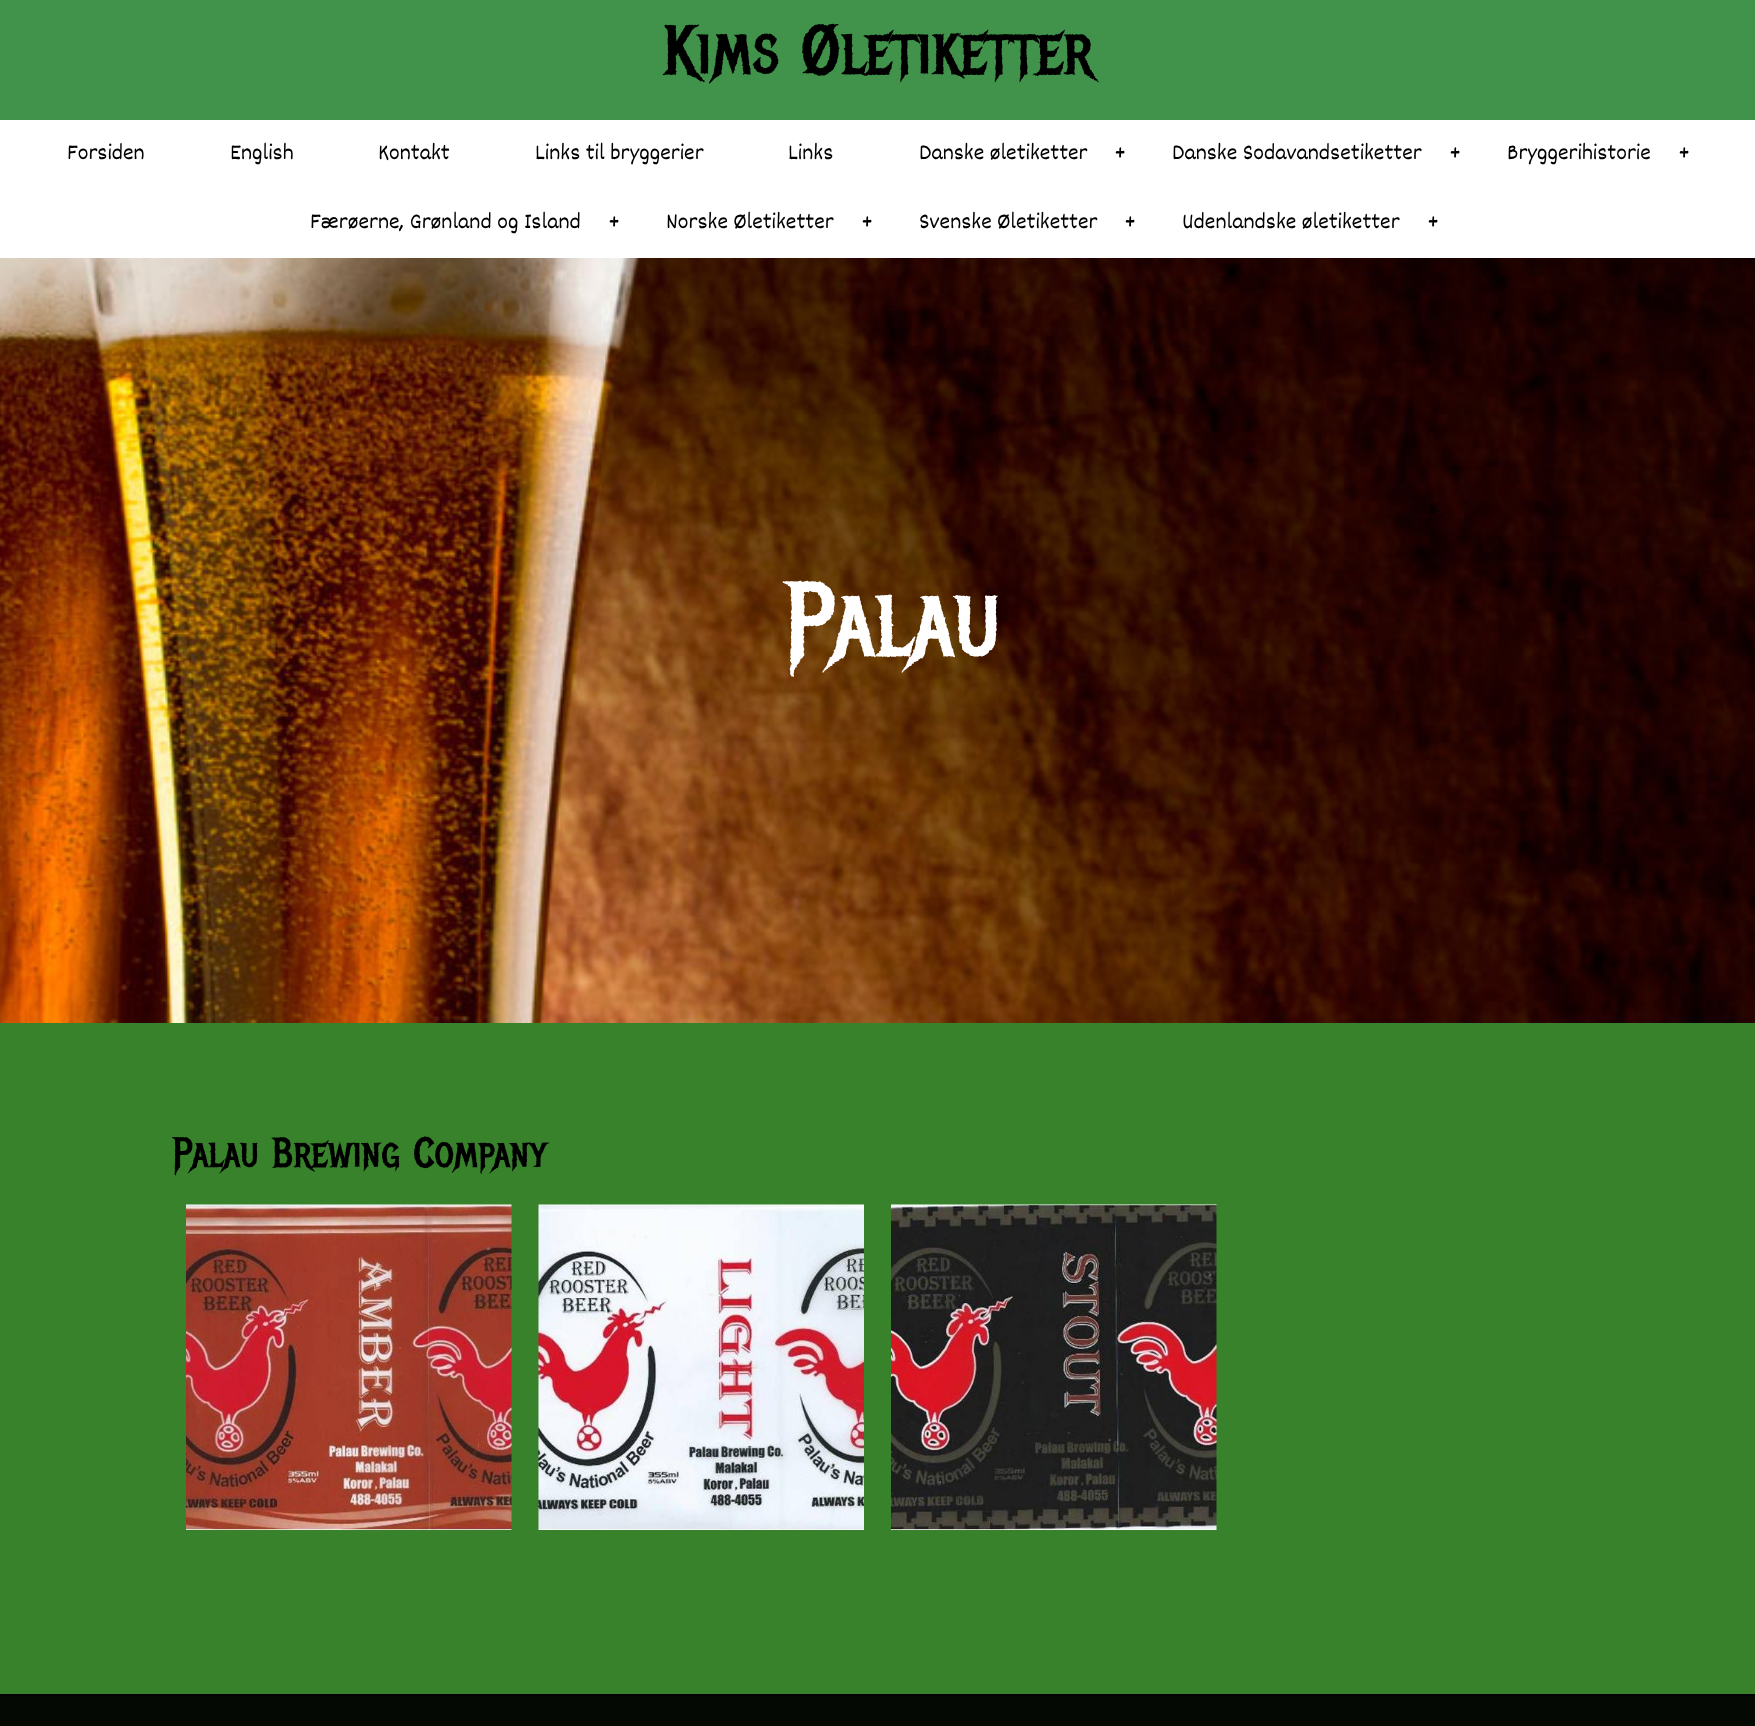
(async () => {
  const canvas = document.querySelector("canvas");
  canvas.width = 1755;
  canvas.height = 1726;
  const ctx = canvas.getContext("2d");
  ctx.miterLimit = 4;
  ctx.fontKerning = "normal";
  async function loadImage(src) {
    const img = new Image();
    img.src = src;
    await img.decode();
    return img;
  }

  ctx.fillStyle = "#38822c";
  ctx.fillRect(0, 0, 1755, 1726);
  ctx.fillStyle = "#41924b";
  ctx.fillRect(0, 0, 1755, 120);
  ctx.drawImage(await loadImage("img/1.png"), 0, 258, 1755, 765);
  ctx.fillStyle = "#ffffff";
  ctx.fillRect(0, 120, 1755, 138);
  ctx.drawImage(await loadImage("img/2.png"), 186, 1204, 326, 326);
  ctx.drawImage(await loadImage("img/3.png"), 538, 1204, 326, 326);
  ctx.drawImage(await loadImage("img/4.png"), 891, 1204, 326, 326);
  ctx.fillStyle = "#040a03";
  ctx.fillRect(0, 1696, 1755, 30);
  ctx.fillStyle = "#000000";
  ctx.fillRect(0, 1694, 1755, 2);
  ctx.font = "69px Metal Mania";
  ctx.fillText("Kims Øletiketter", 663, 74);
  ctx.font = "24px Dekko";
  for (const [text, x, y] of [
    ["Forsiden", 67, 159],
    ["English", 230, 159],
    ["Kontakt", 378, 159],
    ["Links til bryggerier", 535, 159],
    ["Links", 788, 159],
    ["Danske øletiketter", 919, 159],
  ]) {
    ctx.fillText(text, x, y);
  }
  ctx.font = "27px Dekko";
  ctx.fillText("+", 1114, 159);
  ctx.font = "24px Dekko";
  ctx.fillText("Danske Sodavandsetiketter", 1172, 159);
  ctx.font = "27px Dekko";
  ctx.fillText("+", 1449, 159);
  ctx.font = "24px Dekko";
  ctx.fillText("Bryggerihistorie", 1507, 159);
  ctx.font = "27px Dekko";
  ctx.fillText("+", 1678, 159);
  ctx.font = "24px Dekko";
  ctx.fillText("Færøerne, Grønland og Island", 310, 228);
  ctx.font = "27px Dekko";
  ctx.fillText("+", 608, 228);
  ctx.font = "24px Dekko";
  ctx.fillText("Norske Øletiketter", 666, 228);
  ctx.font = "27px Dekko";
  ctx.fillText("+", 861, 228);
  ctx.font = "24px Dekko";
  ctx.fillText("Svenske Øletiketter", 919, 228);
  ctx.font = "27px Dekko";
  ctx.fillText("+", 1124, 228);
  ctx.font = "24px Dekko";
  ctx.fillText("Udenlandske øletiketter", 1182, 228);
  ctx.font = "27px Dekko";
  ctx.fillText("+", 1427, 228);
  ctx.font = "105px Metal Mania";
  ctx.fillStyle = "#ffffff";
  ctx.fillText("Palau", 786, 656);
  ctx.font = "42px Metal Mania";
  ctx.fillStyle = "#000000";
  ctx.fillText("Palau Brewing Company", 173, 1167);
})();
